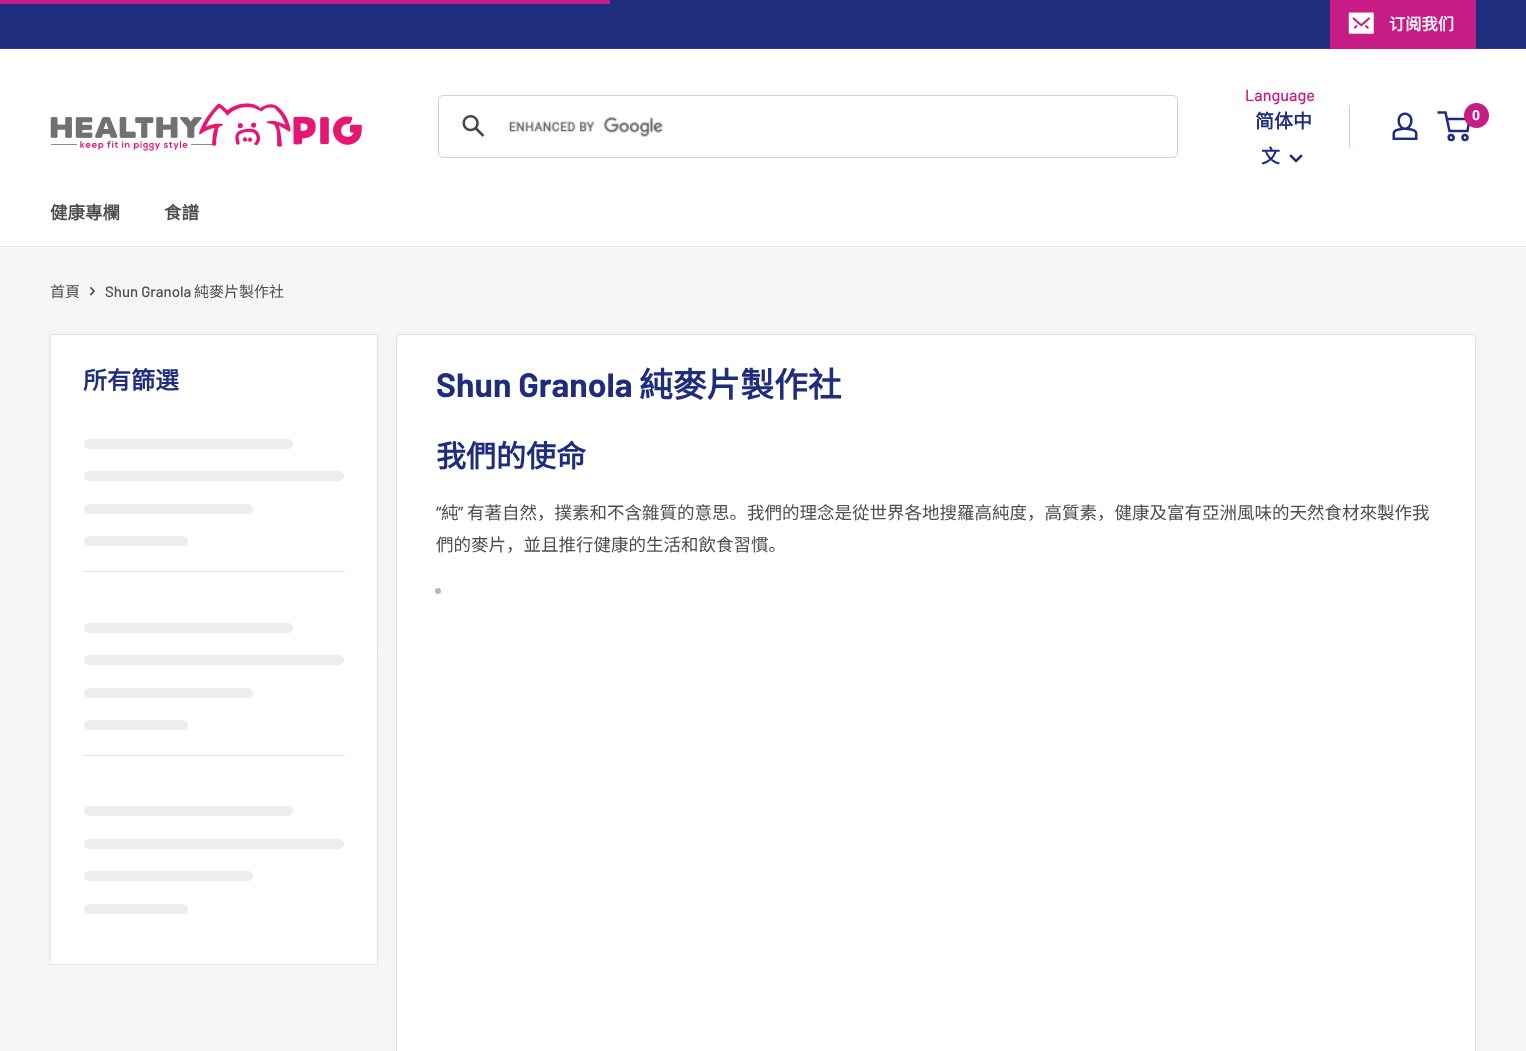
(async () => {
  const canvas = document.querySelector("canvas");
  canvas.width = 1526;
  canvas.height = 1051;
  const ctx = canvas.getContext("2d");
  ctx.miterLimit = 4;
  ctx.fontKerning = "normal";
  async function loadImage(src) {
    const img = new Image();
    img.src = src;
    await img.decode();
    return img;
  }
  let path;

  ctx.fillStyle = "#f3f5f6";
  ctx.fillRect(0, 0, 1526, 1051);
  for (const [x, y, w, h, color] of [
    [0, 0, 1526, 48, "#1e2d7d"],
    [0, 0, 610, 4, "#c71c86"],
    [0, 48, 1526, 1, "#512880"],
    [1330, 0, 146, 49, "#c71c86"],
  ]) {
    ctx.fillStyle = color;
    ctx.fillRect(x, y, w, h);
  }
  ctx.drawImage(await loadImage("img/1.png"), 1348, 12, 26, 22);
  ctx.fillStyle = "#ffffff";
  ctx.fillRect(0, 49, 1526, 199);
  ctx.drawImage(await loadImage("img/2.png"), 50, 103, 312, 48);
  ctx.beginPath();
  ctx.roundRect(438.5, 95.5, 739, 62, 4.5);
  ctx.strokeStyle = "#d2d2d2";
  ctx.stroke();
  ctx.drawImage(await loadImage("img/3.png"), 462, 115, 23, 22);
  ctx.drawImage(await loadImage("img/4.png"), 508, 117, 155, 20);
  path = new Path2D("M1301 156L1296 161L1291 156");
  ctx.strokeStyle = "#1e2d7d";
  ctx.lineWidth = 2.5;
  ctx.lineCap = "square";
  ctx.stroke(path);
  ctx.fillStyle = "#eebbdb";
  ctx.fillRect(1349, 105, 1, 43);
  ctx.drawImage(await loadImage("img/5.png"), 1392, 112, 26, 28);
  ctx.beginPath();
  ctx.arc(1451.2, 137.5, 2.5, 0, Math.PI * 2);
  ctx.stroke();
  ctx.beginPath();
  ctx.arc(1465, 137.5, 2.5, 0, Math.PI * 2);
  ctx.stroke();
  path = new Path2D("M1446.5 119H1469.5L1467.5 131H1449.5L1445.5 112.5H1437.5");
  ctx.lineCap = "butt";
  ctx.stroke(path);
  ctx.fillStyle = "#c71c86";
  ctx.beginPath();
  ctx.arc(1476.5, 115.5, 12.5, 0, Math.PI * 2);
  ctx.fill();
  ctx.fillStyle = "#e1e3e4";
  ctx.fillRect(0, 246, 1526, 1);
  path = new Path2D("M91 288L94 291L91 294.5");
  ctx.strokeStyle = "#4e4e4e";
  ctx.lineWidth = 1.7;
  ctx.lineCap = "square";
  ctx.stroke(path);
  ctx.fillStyle = "#ffffff";
  ctx.beginPath();
  ctx.rect(50.5, 334.5, 327, 630);
  ctx.fill();
  ctx.strokeStyle = "#e1e3e4";
  ctx.lineWidth = 1;
  ctx.stroke();
  ctx.fillStyle = "#ededed";
  ctx.beginPath();
  ctx.roundRect(84, 439, 209, 10, 5);
  ctx.fill();
  ctx.beginPath();
  ctx.roundRect(84, 471, 260, 10, 5);
  ctx.fill();
  ctx.beginPath();
  ctx.roundRect(84, 504, 169, 10, 5);
  ctx.fill();
  ctx.beginPath();
  ctx.roundRect(84, 536, 104, 10, 5);
  ctx.fill();
  ctx.fillStyle = "#e3e3e3";
  ctx.fillRect(83, 571, 262, 1);
  ctx.fillStyle = "#ededed";
  ctx.beginPath();
  ctx.roundRect(84, 623, 209, 10, 5);
  ctx.fill();
  ctx.beginPath();
  ctx.roundRect(84, 655, 260, 10, 5);
  ctx.fill();
  ctx.beginPath();
  ctx.roundRect(84, 688, 169, 10, 5);
  ctx.fill();
  ctx.beginPath();
  ctx.roundRect(84, 720, 104, 10, 5);
  ctx.fill();
  ctx.fillStyle = "#e3e3e3";
  ctx.fillRect(83, 755, 262, 1);
  ctx.fillStyle = "#ededed";
  ctx.beginPath();
  ctx.roundRect(84, 806, 209, 10, 5);
  ctx.fill();
  ctx.beginPath();
  ctx.roundRect(84, 839, 260, 10, 5);
  ctx.fill();
  ctx.beginPath();
  ctx.roundRect(84, 871, 169, 10, 5);
  ctx.fill();
  ctx.beginPath();
  ctx.roundRect(84, 904, 104, 10, 5);
  ctx.fill();
  ctx.fillStyle = "#ffffff";
  ctx.beginPath();
  ctx.roundRect(396.5, 334.5, 1079, 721, 3.5);
  ctx.fill();
  ctx.stroke();
  ctx.fillStyle = "#b8b8b8";
  ctx.beginPath();
  ctx.arc(438, 591, 3, 0, Math.PI * 2);
  ctx.fill();
  ctx.font = "bold 16.25px Noto Sans CJK SC";
  ctx.fillStyle = "#ffffff";
  ctx.fillText("订阅我们", 1389, 30);
  ctx.font = "500 16.25px Barlow";
  ctx.fillStyle = "#c71c86";
  ctx.fillText("Language", 1245, 101);
  ctx.font = "bold 19px Noto Sans CJK SC";
  ctx.fillStyle = "#1e2d7d";
  ctx.fillText("简体中", 1255, 128);
  ctx.fillText("文", 1261, 163);
  ctx.font = "bold 14px Barlow";
  ctx.fillStyle = "#ffffff";
  ctx.fillText("0", 1472, 120);
  ctx.font = "bold 17.5px Noto Sans CJK SC";
  ctx.fillStyle = "#4e4e4e";
  ctx.fillText("健康專欄", 50, 219);
  ctx.fillText("食譜", 164, 219);
  ctx.font = "15px Noto Sans CJK SC";
  ctx.fillText("首頁", 50, 297);
  ctx.font = "500 15px Barlow";
  ctx.fillText("Shun Granola", 105, 297);
  ctx.font = "15px Noto Sans CJK SC";
  ctx.fillText("純麥片製作社", 194, 297);
  ctx.font = "bold 24px Noto Sans CJK SC";
  ctx.fillStyle = "#1e2d7d";
  ctx.fillText("所有篩選", 83, 389);
  ctx.font = "bold 33.75px Barlow";
  ctx.fillText("Shun Granola", 436, 397);
  ctx.font = "bold 33.75px Noto Sans CJK SC";
  ctx.fillText("純麥片製作社", 639, 397);
  ctx.font = "bold 30px Noto Sans CJK SC";
  ctx.fillText("我們的使命", 436, 467);
  ctx.font = "500 17.5px Barlow";
  ctx.fillStyle = "#4e4e4e";
  ctx.fillText("“", 436, 519);
  ctx.font = "17.5px Noto Sans CJK SC";
  ctx.fillText("純", 441, 519);
  ctx.font = "500 17.5px Barlow";
  ctx.fillText("”", 458, 519);
  ctx.font = "17.5px Noto Sans CJK SC";
  ctx.fillText("有著自然，撲素和不含雜質的意思。我們的理念是從世界各地搜羅高純度，高質素，健康及富有亞洲風味的天然食材來製作我", 467, 519);
  ctx.fillText("們的麥片，並且推行健康的生活和飲食習慣。", 436, 551);
})();
